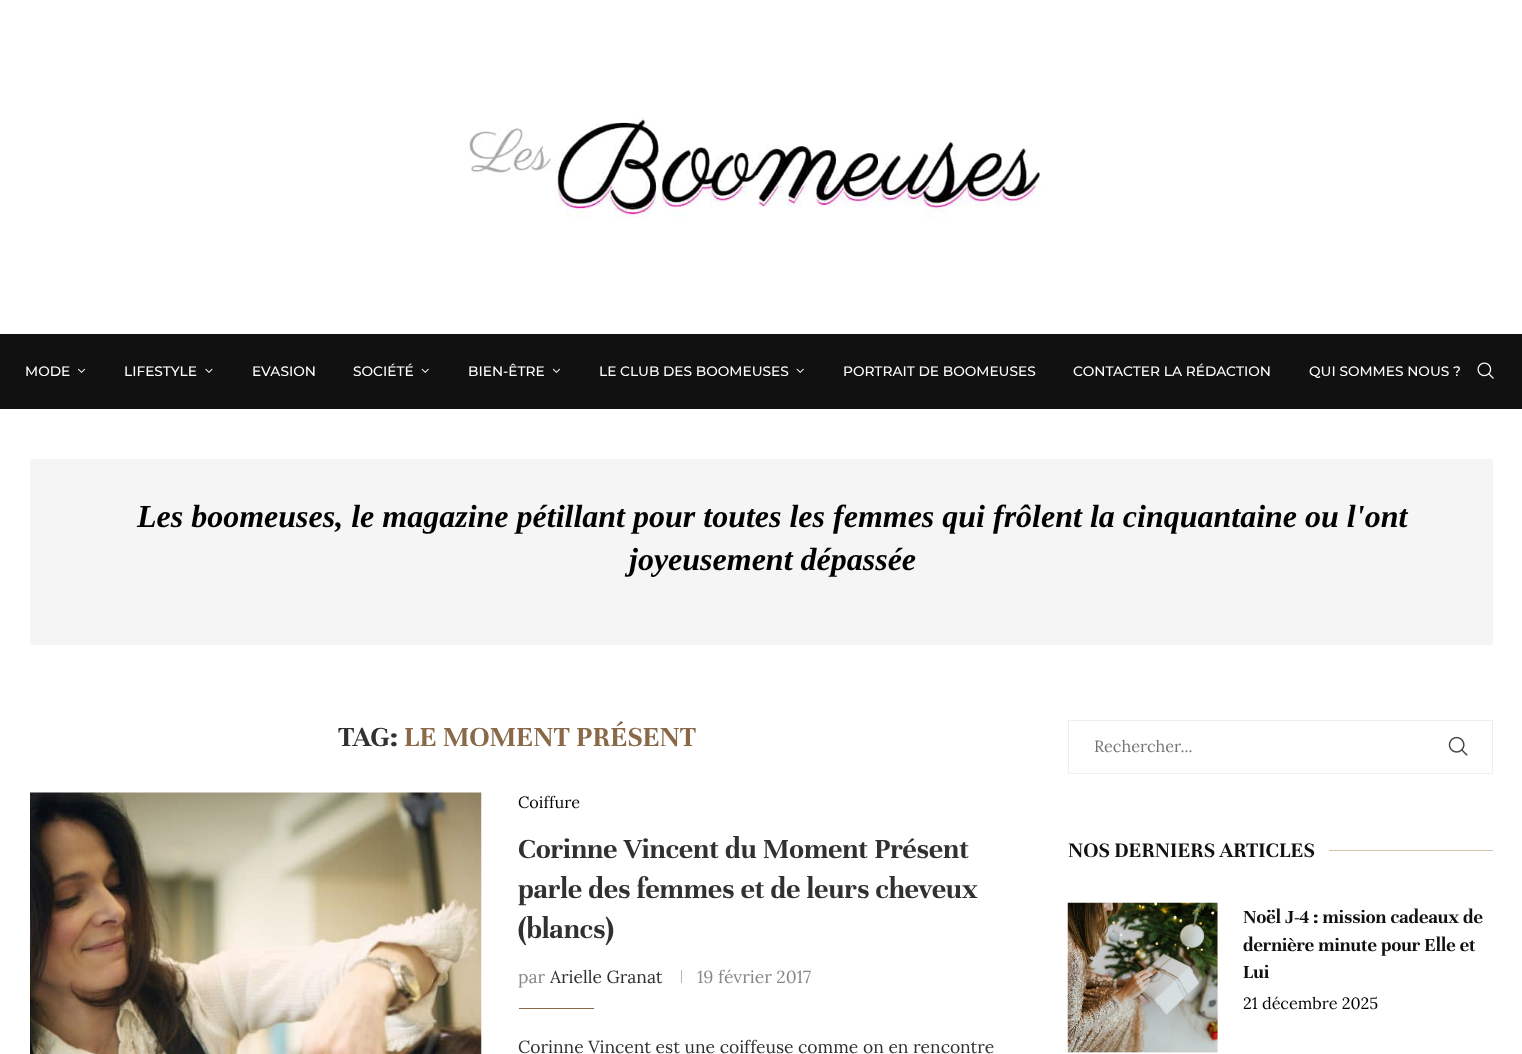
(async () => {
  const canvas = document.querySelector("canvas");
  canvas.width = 1522;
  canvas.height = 1054;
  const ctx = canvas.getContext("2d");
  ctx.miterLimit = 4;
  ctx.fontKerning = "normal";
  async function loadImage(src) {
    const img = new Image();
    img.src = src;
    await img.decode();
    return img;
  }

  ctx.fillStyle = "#ffffff";
  ctx.fillRect(0, 0, 1522, 1054);
  ctx.drawImage(await loadImage("img/1.png"), 465, 116, 576, 103);
  ctx.fillStyle = "#111111";
  ctx.fillRect(0, 334, 1522, 75);
  ctx.drawImage(await loadImage("img/2.png"), 78, 368, 8, 5);
  ctx.drawImage(await loadImage("img/3.png"), 205, 368, 8, 5);
  ctx.drawImage(await loadImage("img/4.png"), 421, 368, 8, 5);
  ctx.drawImage(await loadImage("img/5.png"), 552, 368, 8, 5);
  ctx.drawImage(await loadImage("img/6.png"), 796, 368, 8, 5);
  ctx.drawImage(await loadImage("img/7.png"), 1477, 362, 17, 17);
  ctx.fillStyle = "#f5f5f5";
  ctx.fillRect(30, 459, 1463, 186);
  ctx.drawImage(await loadImage("img/8.png"), 30, 792, 452, 262);
  ctx.fillStyle = "#b8b8b8";
  ctx.fillRect(681, 970, 1, 13);
  ctx.fillStyle = "#896948";
  ctx.fillRect(519, 1008, 75, 1);
  ctx.strokeStyle = "#eeeeee";
  ctx.strokeRect(1068.5, 720.5, 424, 53);
  ctx.drawImage(await loadImage("img/9.png"), 1448, 736, 20, 20);
  ctx.fillStyle = "#d3bea9";
  ctx.fillRect(1329, 850, 164, 1);
  ctx.fillStyle = "#f5f5f5";
  ctx.fillRect(1068, 903, 150, 150);
  ctx.drawImage(await loadImage("img/10.png"), 1067, 902, 151, 151);
  ctx.font = "100 13.75px Montserrat";
  ctx.fillStyle = "#ffffff";
  for (const [text, x, y] of [
    ["MODE", 25, 376],
    ["LIFESTYLE", 124, 376],
    ["EVASION", 252, 376],
    ["SOCIÉTÉ", 353, 376],
    ["BIEN-ÊTRE", 468, 376],
    ["LE CLUB DES BOOMEUSES", 599, 376],
    ["PORTRAIT DE BOOMEUSES", 843, 376],
    ["CONTACTER LA RÉDACTION", 1073, 376],
    ["QUI SOMMES NOUS ?", 1309, 376],
  ]) {
    ctx.fillText(text, x, y);
  }
  ctx.font = "italic bold 32px Liberation Serif";
  ctx.fillStyle = "#000000";
  ctx.fillText("Les boomeuses, le magazine pétillant pour toutes les femmes qui frôlent la cinquantaine ou l'ont", 137, 527);
  ctx.fillText("joyeusement dépassée", 629, 570);
  ctx.font = "bold 30px Unna";
  ctx.fillStyle = "#313131";
  ctx.fillText("TAG:", 338, 746);
  ctx.fillStyle = "#896948";
  ctx.fillText("LE MOMENT PRÉSENT", 404, 746);
  ctx.font = "16.25px Lora";
  ctx.fillStyle = "#000000";
  ctx.fillText("Coiffure", 518, 808);
  ctx.font = "bold 30px Unna";
  ctx.fillStyle = "#313131";
  for (const [text, x, y] of [
    ["Corinne Vincent du Moment Présent", 518, 858],
    ["parle des femmes et de leurs cheveux", 518, 898],
    ["(blancs)", 518, 938],
  ]) {
    ctx.fillText(text, x, y);
  }
  ctx.font = "17.5px Lora";
  ctx.fillStyle = "#888888";
  ctx.fillText("par", 518, 983);
  ctx.fillStyle = "#313131";
  ctx.fillText("Arielle Granat", 550, 983);
  ctx.fillStyle = "#888888";
  ctx.fillText("19 février 2017", 697, 983);
  ctx.fillStyle = "#313131";
  ctx.fillText("Corinne Vincent est une coiffeuse comme on en rencontre", 518, 1053);
  ctx.font = "16.25px Lora";
  ctx.fillStyle = "#757575";
  ctx.fillText("Rechercher...", 1094, 752);
  ctx.font = "bold 22.5px Unna";
  ctx.fillStyle = "#111111";
  ctx.fillText("NOS DERNIERS ARTICLES", 1068, 857);
  ctx.font = "bold 20px Unna";
  for (const [text, x, y] of [
    ["Noël J-4 : mission cadeaux de", 1243, 923],
    ["dernière minute pour Elle et", 1243, 951],
    ["Lui", 1243, 978],
  ]) {
    ctx.fillText(text, x, y);
  }
  ctx.font = "16.25px Lora";
  ctx.fillStyle = "#000000";
  ctx.fillText("21 décembre 2025", 1243, 1009);
})();
